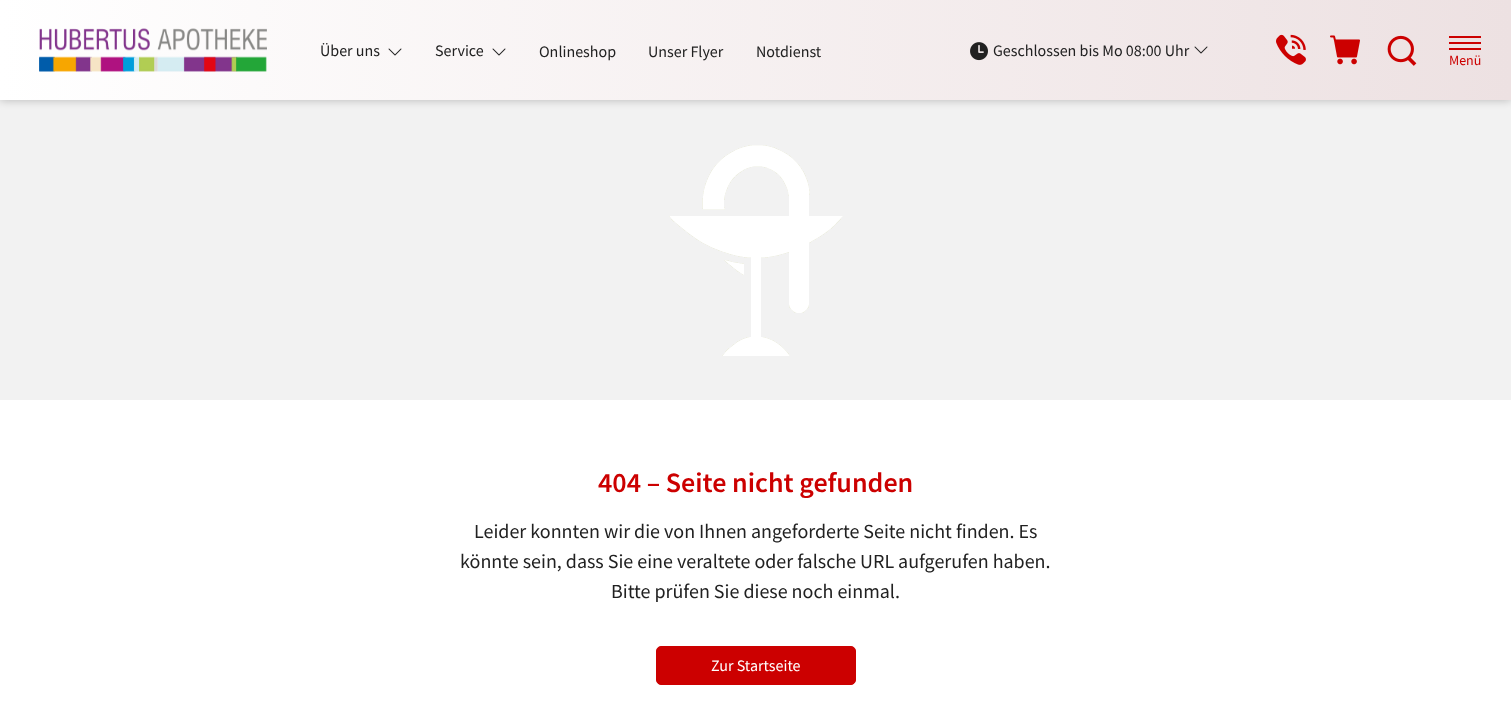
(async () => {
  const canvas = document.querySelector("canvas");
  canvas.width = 1511;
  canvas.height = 723;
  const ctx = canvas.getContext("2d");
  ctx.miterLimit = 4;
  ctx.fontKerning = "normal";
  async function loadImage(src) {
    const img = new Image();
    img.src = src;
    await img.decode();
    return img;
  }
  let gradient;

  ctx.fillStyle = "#ffffff";
  ctx.fillRect(0, 0, 1511, 723);
  ctx.fillStyle = "#f2f2f2";
  ctx.fillRect(0, 100, 1511, 300);
  ctx.fillStyle = "rgba(0, 0, 0, 0.25)";
  ctx.filter = "blur(5px)";
  ctx.beginPath();
  ctx.rect(0, 0, 1511, 100);
  ctx.fill();
  ctx.filter = "none";
  gradient = ctx.createLinearGradient(0, 50, 1511, 50);
  gradient.addColorStop(0, "#ffffff");
  gradient.addColorStop(1, "#ede1e2");
  ctx.fillStyle = gradient;
  ctx.fillRect(0, 0, 1511, 100);
  ctx.drawImage(await loadImage("img/1.png"), 39, 28, 228, 44);
  ctx.drawImage(await loadImage("img/2.png"), 388, 48, 14, 8);
  ctx.drawImage(await loadImage("img/3.png"), 492, 48, 14, 8);
  ctx.drawImage(await loadImage("img/4.png"), 970, 42, 18, 19);
  ctx.drawImage(await loadImage("img/5.png"), 1194, 46, 14, 8);
  ctx.drawImage(await loadImage("img/6.png"), 1276, 34, 30, 31);
  ctx.drawImage(await loadImage("img/7.png"), 1330, 35, 30, 30);
  ctx.drawImage(await loadImage("img/8.png"), 1387, 35, 30, 31);
  for (const [x, y, w, h, color] of [
    [1449, 42, 32, 2, "#cc0000"],
    [1449, 36, 32, 2, "#cc0000"],
    [1449, 48, 32, 2, "#cc0000"],
  ]) {
    ctx.fillStyle = color;
    ctx.fillRect(x, y, w, h);
  }
  ctx.drawImage(await loadImage("img/9.png"), 669, 145, 174, 211);
  ctx.beginPath();
  ctx.roundRect(656.5, 646.5, 199, 38, 4.5);
  ctx.fill();
  ctx.strokeStyle = "#cc0000";
  ctx.stroke();
  ctx.font = "16px Source Sans Pro";
  ctx.fillStyle = "#212121";
  for (const [text, x, y] of [
    ["Über uns", 320, 56],
    ["Service", 435, 56],
    ["Onlineshop", 539, 57],
    ["Unser Flyer", 648, 57],
    ["Notdienst", 756, 57],
    ["Geschlossen bis Mo 08:00 Uhr", 993, 56],
  ]) {
    ctx.fillText(text, x, y);
  }
  ctx.font = "14px Source Sans Pro";
  ctx.fillStyle = "#cc0000";
  ctx.fillText("Menü", 1449, 65);
  ctx.font = "600 28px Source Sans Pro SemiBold";
  ctx.fillText("404 – Seite nicht gefunden", 598, 492);
  ctx.font = "20px Source Sans Pro";
  ctx.fillStyle = "#212121";
  for (const [text, x, y] of [
    ["Leider konnten wir die von Ihnen angeforderte Seite nicht finden. Es", 474, 538],
    ["könnte sein, dass Sie eine veraltete oder falsche URL aufgerufen haben.", 460, 568],
    ["Bitte prüfen Sie diese noch einmal.", 611, 598],
  ]) {
    ctx.fillText(text, x, y);
  }
  ctx.font = "16px Source Sans Pro";
  ctx.fillStyle = "#ffffff";
  ctx.fillText("Zur Startseite", 711, 671);
})();
